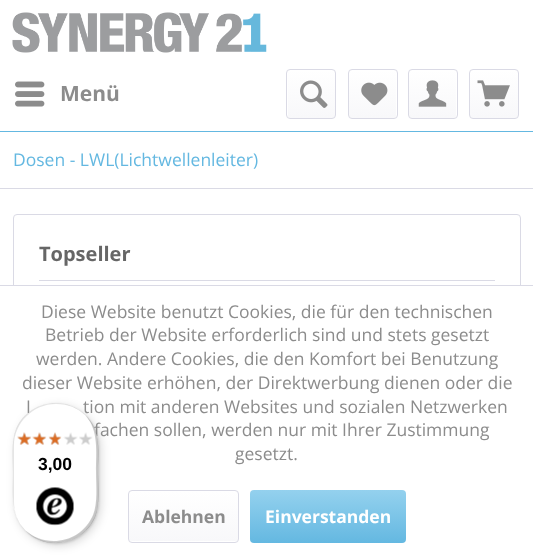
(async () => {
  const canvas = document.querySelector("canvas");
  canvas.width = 533;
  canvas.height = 555;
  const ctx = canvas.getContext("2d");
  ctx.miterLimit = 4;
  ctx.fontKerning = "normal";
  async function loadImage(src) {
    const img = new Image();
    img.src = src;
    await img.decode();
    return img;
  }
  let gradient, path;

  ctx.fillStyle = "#ffffff";
  ctx.fillRect(0, 0, 533, 555);
  ctx.fillStyle = "#64b8e1";
  ctx.fillRect(0, 131, 533, 1);
  ctx.drawImage(await loadImage("img/1.png"), 12, 12, 255, 41);
  ctx.drawImage(await loadImage("img/2.png"), 15, 81, 30, 26);
  gradient = ctx.createLinearGradient(311, 70, 311, 118);
  gradient.addColorStop(0, "#ffffff");
  gradient.addColorStop(1, "#f8f8fa");
  ctx.fillStyle = gradient;
  ctx.beginPath();
  ctx.roundRect(288, 70, 47, 48, 2.5);
  ctx.fill();
  ctx.beginPath();
  ctx.roundRect(286.5, 69.5, 49, 49, 3.5);
  ctx.strokeStyle = "#dadae5";
  ctx.stroke();
  ctx.drawImage(await loadImage("img/3.png"), 300, 80, 28, 28);
  gradient = ctx.createLinearGradient(373, 70, 373, 118);
  gradient.addColorStop(0, "#ffffff");
  gradient.addColorStop(1, "#f8f8fa");
  ctx.fillStyle = gradient;
  ctx.beginPath();
  ctx.roundRect(349, 70, 47, 48, 2.5);
  ctx.fill();
  ctx.beginPath();
  ctx.roundRect(348.5, 69.5, 49, 49, 3.5);
  ctx.stroke();
  ctx.drawImage(await loadImage("img/4.png"), 361, 82, 27, 24);
  gradient = ctx.createLinearGradient(433, 70, 433, 118);
  gradient.addColorStop(0, "#ffffff");
  gradient.addColorStop(1, "#f8f8fa");
  ctx.fillStyle = gradient;
  ctx.beginPath();
  ctx.roundRect(409, 70, 47, 48, 2.5);
  ctx.fill();
  ctx.beginPath();
  ctx.roundRect(408.5, 69.5, 49, 49, 3.5);
  ctx.stroke();
  ctx.drawImage(await loadImage("img/5.png"), 418, 80, 29, 27);
  gradient = ctx.createLinearGradient(494, 70, 494, 118);
  gradient.addColorStop(0, "#ffffff");
  gradient.addColorStop(1, "#f8f8fa");
  ctx.fillStyle = gradient;
  ctx.beginPath();
  ctx.roundRect(470, 70, 48, 48, 2.5);
  ctx.fill();
  ctx.beginPath();
  ctx.roundRect(469.5, 69.5, 49, 49, 3.5);
  ctx.stroke();
  ctx.drawImage(await loadImage("img/6.png"), 477, 80, 33, 27);
  ctx.fillStyle = "#dadae5";
  ctx.fillRect(0, 188, 533, 1);
  ctx.beginPath();
  ctx.roundRect(13.5, 214.5, 507, 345, 3.5);
  ctx.stroke();
  for (const [x, y, w, h, color] of [
    [39, 280, 456, 1, "#dadae5"],
    [13, 286, 508, 269, "#ffffff"],
    [0, 285, 533, 1, "#dadae5"],
  ]) {
    ctx.fillStyle = color;
    ctx.fillRect(x, y, w, h);
  }
  gradient = ctx.createLinearGradient(183, 491, 183, 541);
  gradient.addColorStop(0, "#ffffff");
  gradient.addColorStop(1, "#f8f8fa");
  ctx.fillStyle = gradient;
  ctx.beginPath();
  ctx.roundRect(129, 491, 109, 50, 2.5);
  ctx.fill();
  ctx.beginPath();
  ctx.roundRect(128.5, 490.5, 110, 52, 3.5);
  ctx.stroke();
  gradient = ctx.createLinearGradient(328, 490, 328, 543);
  gradient.addColorStop(0, "#94d1ee");
  gradient.addColorStop(1, "#64b8e1");
  ctx.fillStyle = gradient;
  ctx.beginPath();
  ctx.roundRect(250, 490, 156, 53, 4);
  ctx.fill();
  ctx.fillStyle = "rgba(0, 0, 0, 0.15)";
  ctx.filter = "blur(5px)";
  ctx.beginPath();
  ctx.roundRect(16, 406, 85, 140, 42.5);
  ctx.fill();
  ctx.filter = "none";
  ctx.filter = "blur(1px)";
  ctx.beginPath();
  ctx.roundRect(14, 404, 85, 140, 42.5);
  ctx.fill();
  ctx.filter = "none";
  ctx.font = "bold 21px Open Sans";
  ctx.fillStyle = "#8c8c8c";
  ctx.fillText("Menü", 60, 101);
  ctx.font = "17.5px Open Sans";
  ctx.fillStyle = "#64b8e1";
  ctx.fillText("Dosen - LWL(Lichtwellenleiter)", 13, 166);
  ctx.font = "bold 20px Open Sans";
  ctx.fillStyle = "#666666";
  ctx.fillText("Topseller", 39, 261);
  ctx.font = "17.5px Open Sans";
  ctx.fillStyle = "#8c8c8c";
  for (const [text, x, y] of [
    ["Diese Website benutzt Cookies, die für den technischen", 41, 318],
    ["Betrieb der Website erforderlich sind und stets gesetzt", 45, 341],
    ["werden. Andere Cookies, die den Komfort bei Benutzung", 36, 365],
    ["dieser Website erhöhen, der Direktwerbung dienen oder die", 22, 389],
    ["I", 26, 413],
    ["tion mit anderen Websites und sozialen Netzwerken", 83, 413],
    ["fachen sollen, werden nur mit Ihrer Zustimmung", 94, 436],
    ["gesetzt.", 235, 460],
  ]) {
    ctx.fillText(text, x, y);
  }
  ctx.font = "bold 17.5px Open Sans";
  ctx.fillText("Ablehnen", 142, 523);
  ctx.fillStyle = "#ffffff";
  ctx.fillText("Einverstanden", 265, 523);
  ctx.beginPath();
  ctx.roundRect(13, 403, 85, 140, 42.5);
  ctx.fill();
  ctx.fillStyle = "rgba(0, 0, 0, 0.1)";
  path = new Path2D("M56 404C68 404 78 408 86 416C65 394 28 401 16 429C11 441 13 459 13 473C13 494 10 515 26 531C18 523 14 513 14 501V446C14 423 33 404 56 404Z");
  ctx.fill(path);
  ctx.fillStyle = "rgba(0, 0, 0, 0.2)";
  path = new Path2D("M25 530C45 552 83 545 95 517C100 505 98 487 98 473C98 452 102 430 85 415C99 430 96 452 96 472C96 485 98 503 93 515C81 543 46 549 25 530Z");
  ctx.fill(path);
  ctx.fillStyle = "rgba(50, 50, 50, 0.2)";
  path = new Path2D("M25 531C46 551 83 545 95 517C100 505 98 487 98 473C98 452 101 431 86 415C93 423 97 433 97 444V499C97 523 78 542 54 542C43 542 33 538 25 531Z");
  ctx.fill(path);
  ctx.fillStyle = "rgba(255, 255, 255, 0.3)";
  path = new Path2D("M25 531C46 551 83 545 95 517C100 505 98 487 98 473C98 452 101 431 86 415C93 423 97 433 97 444V499C97 523 78 542 54 542C43 542 33 538 25 531Z");
  ctx.fill(path);
  ctx.drawImage(await loadImage("img/7.png"), 17, 432, 14, 13);
  ctx.drawImage(await loadImage("img/8.png"), 34, 432, 12, 13);
  ctx.drawImage(await loadImage("img/9.png"), 49, 432, 12, 13);
  ctx.drawImage(await loadImage("img/10.png"), 64, 432, 14, 13);
  ctx.drawImage(await loadImage("img/11.png"), 79, 432, 14, 13);
  ctx.drawImage(await loadImage("img/12.png"), 17, 432, 15, 13);
  ctx.drawImage(await loadImage("img/13.png"), 32, 432, 15, 13);
  ctx.drawImage(await loadImage("img/14.png"), 48, 432, 14, 13);
  ctx.drawImage(await loadImage("img/15.png"), 63, 437, 1, 1);
  ctx.font = "bold 17.5px Liberation Sans";
  ctx.fillStyle = "#000000";
  ctx.fillText("3,00", 38, 470);
  ctx.drawImage(await loadImage("img/16.png"), 36, 487, 38, 39);
})();
